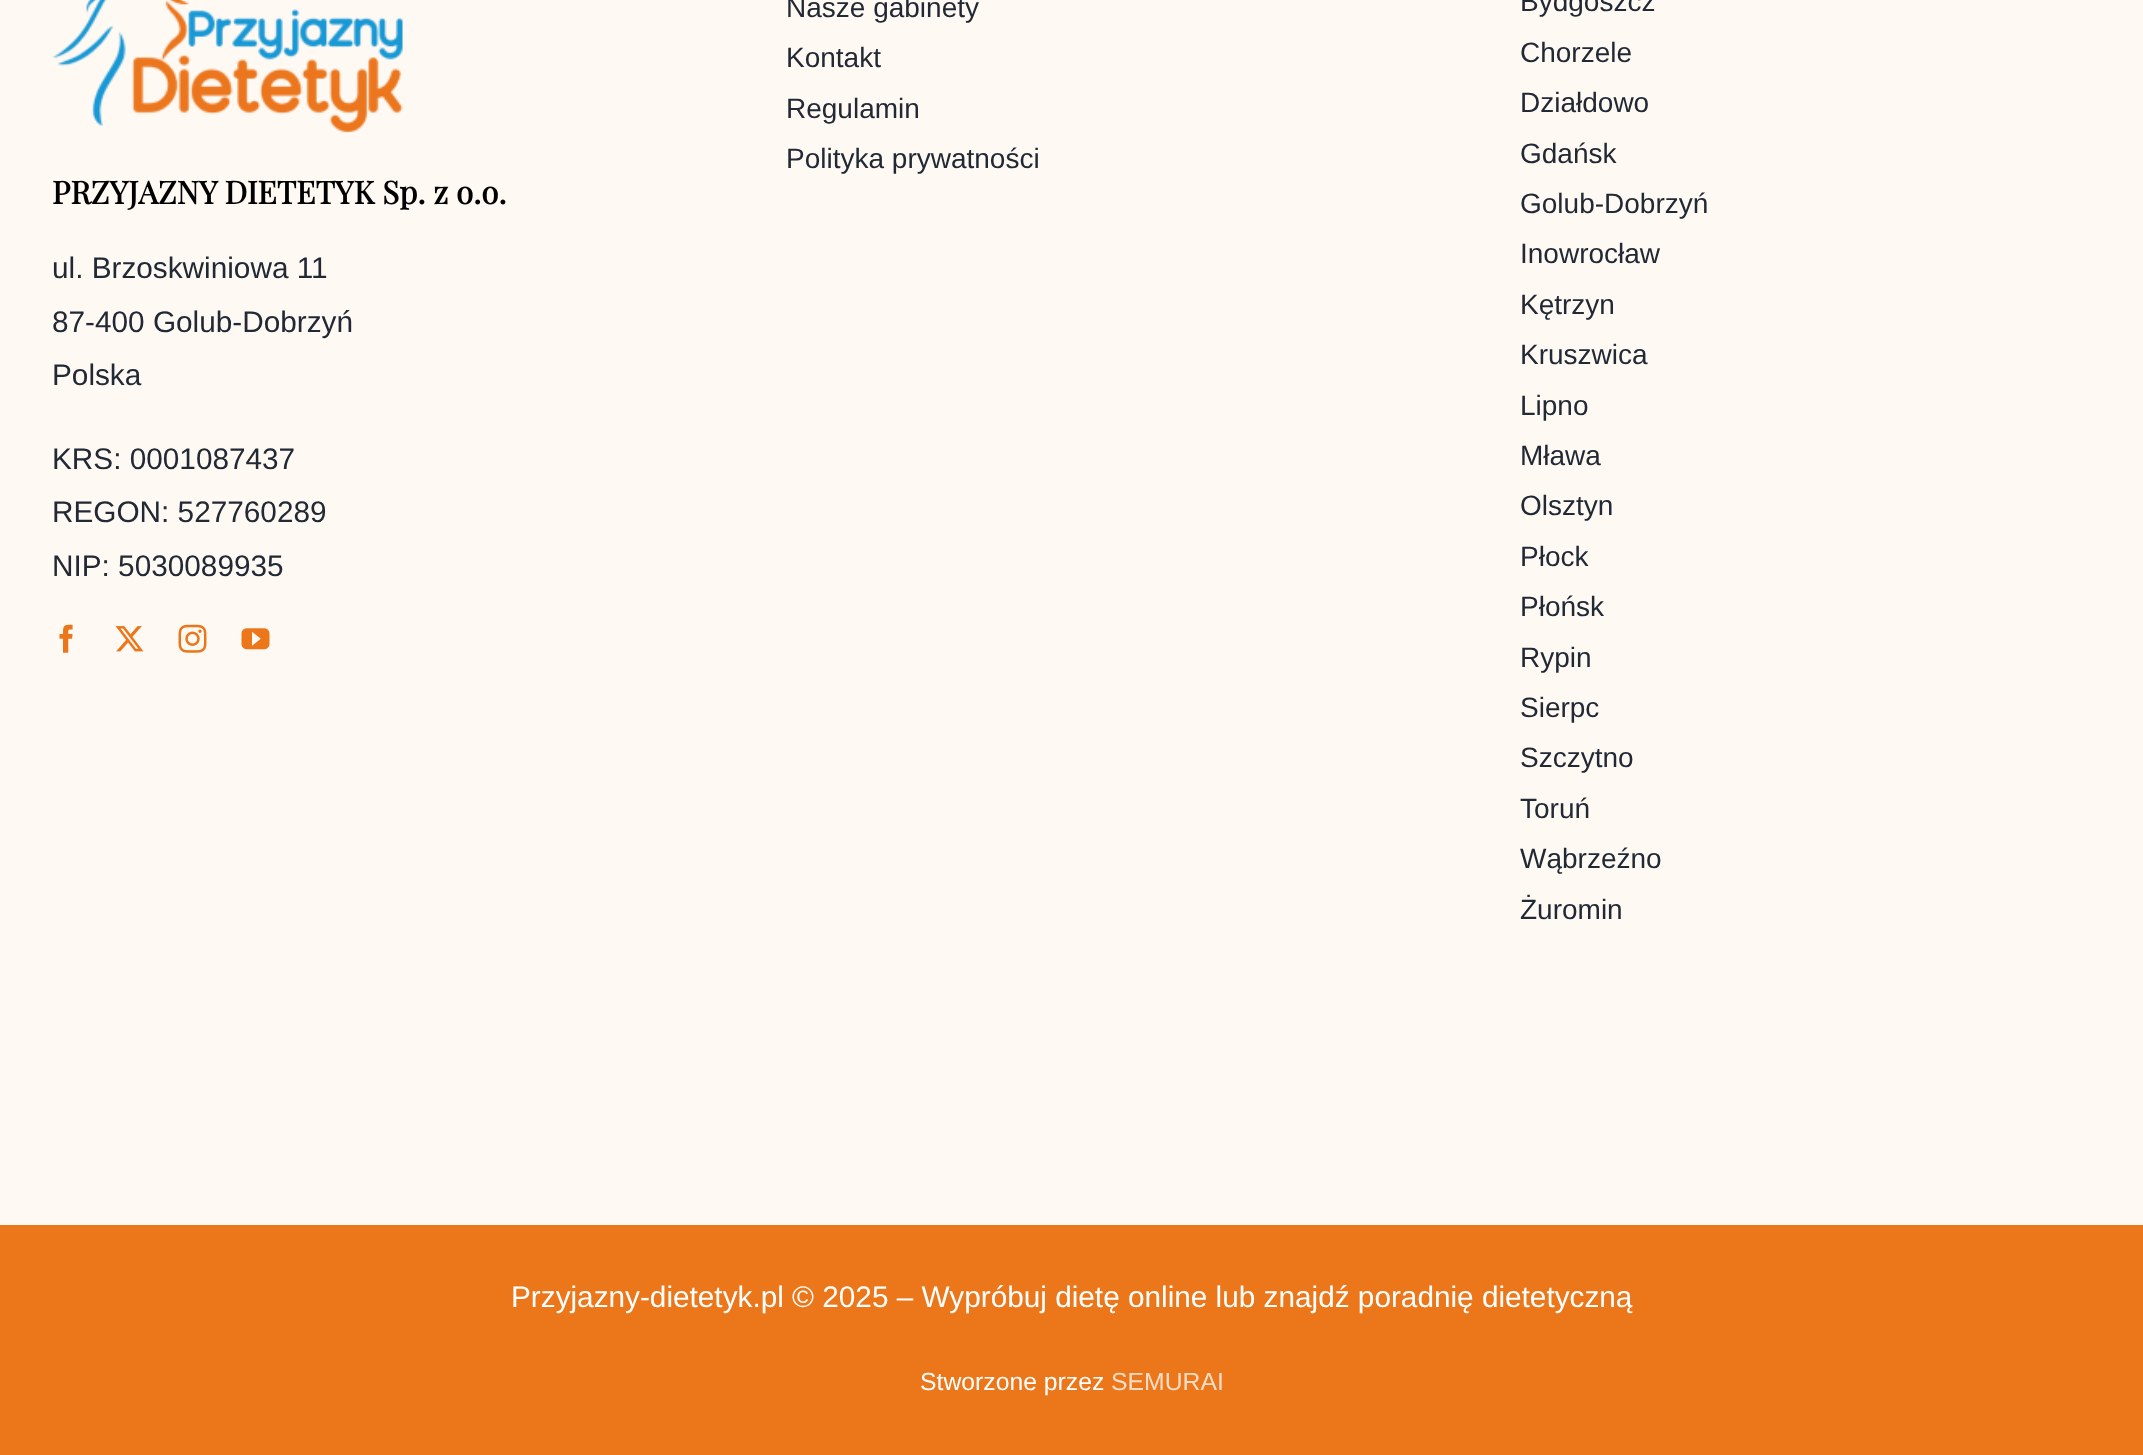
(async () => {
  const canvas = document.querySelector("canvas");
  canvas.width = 2143;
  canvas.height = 1455;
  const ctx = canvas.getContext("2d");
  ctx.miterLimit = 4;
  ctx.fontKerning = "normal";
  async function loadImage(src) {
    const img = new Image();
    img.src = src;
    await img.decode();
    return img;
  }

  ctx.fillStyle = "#fff9f4";
  ctx.fillRect(0, 0, 2143, 1455);
  ctx.drawImage(await loadImage("img/1.png"), 52, 0, 351, 133);
  ctx.drawImage(await loadImage("img/2.png"), 59, 624, 14, 29);
  ctx.drawImage(await loadImage("img/3.png"), 115, 626, 29, 26);
  ctx.drawImage(await loadImage("img/4.png"), 178, 624, 29, 29);
  ctx.drawImage(await loadImage("img/5.png"), 241, 628, 29, 22);
  ctx.fillStyle = "#ec771a";
  ctx.fillRect(0, 1225, 2143, 230);
  ctx.font = "bold 31.5px Playfair Display";
  ctx.fillStyle = "#000000";
  ctx.fillText("PRZYJAZNY DIETETYK Sp. z o.o.", 52, 204);
  ctx.font = "29.75px Liberation Sans";
  ctx.fillStyle = "#212934";
  for (const [text, x, y] of [
    ["ul. Brzoskwiniowa 11", 52, 278],
    ["87-400 Golub-Dobrzyń", 52, 332],
    ["Polska", 52, 385],
    ["KRS: 0001087437", 52, 469],
    ["REGON: 527760289", 52, 522],
    ["NIP: 5030089935", 52, 576],
  ]) {
    ctx.fillText(text, x, y);
  }
  ctx.font = "28px Liberation Sans";
  for (const [text, x, y] of [
    ["Nasze gabinety", 786, 17],
    ["Kontakt", 786, 67],
    ["Regulamin", 786, 118],
    ["Polityka prywatności", 786, 168],
    ["Bydgoszcz", 1520, 11],
    ["Chorzele", 1520, 62],
    ["Działdowo", 1520, 112],
    ["Gdańsk", 1520, 163],
    ["Golub-Dobrzyń", 1520, 213],
    ["Inowrocław", 1520, 263],
    ["Kętrzyn", 1520, 314],
    ["Kruszwica", 1520, 364],
    ["Lipno", 1520, 415],
    ["Mława", 1520, 465],
    ["Olsztyn", 1520, 515],
    ["Płock", 1520, 566],
    ["Płońsk", 1520, 616],
    ["Rypin", 1520, 667],
    ["Sierpc", 1520, 717],
    ["Szczytno", 1520, 767],
    ["Toruń", 1520, 818],
    ["Wąbrzeźno", 1520, 868],
    ["Żuromin", 1520, 919],
  ]) {
    ctx.fillText(text, x, y);
  }
  ctx.font = "29.75px Liberation Sans";
  ctx.fillStyle = "#ffffff";
  ctx.fillText("Przyjazny-dietetyk.pl © 2025 – Wypróbuj dietę online lub znajdź poradnię dietetyczną", 511, 1307);
  ctx.font = "24.75px Liberation Sans";
  ctx.fillText("Stworzone przez", 920, 1390);
  ctx.fillStyle = "#faddc6";
  ctx.fillText("SEMURAI", 1111, 1390);
})();
